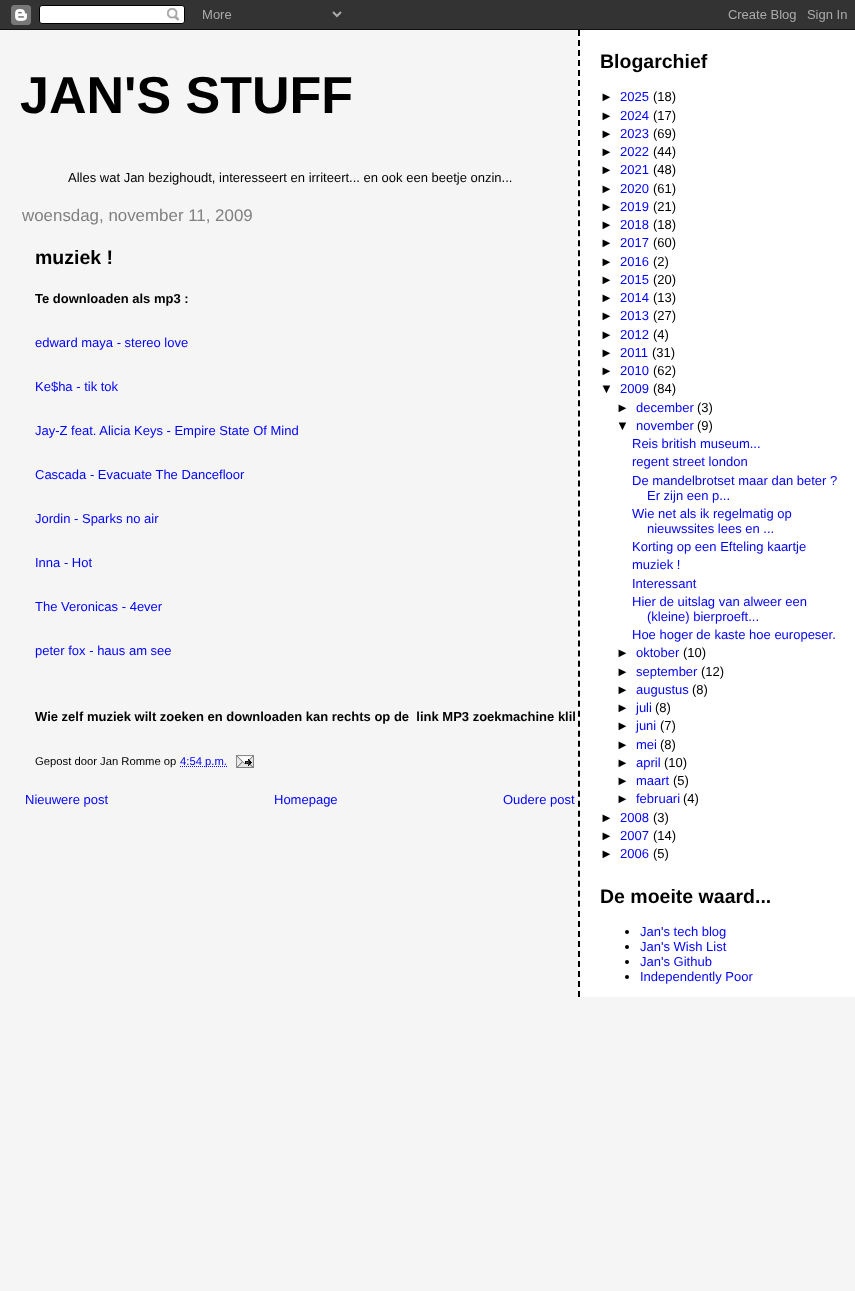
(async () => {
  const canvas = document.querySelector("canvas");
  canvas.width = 855;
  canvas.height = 1291;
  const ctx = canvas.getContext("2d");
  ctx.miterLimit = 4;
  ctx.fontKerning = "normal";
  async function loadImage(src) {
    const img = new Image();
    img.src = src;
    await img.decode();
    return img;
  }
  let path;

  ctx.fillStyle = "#f5f5f5";
  ctx.fillRect(0, 0, 855, 1291);
  ctx.drawImage(await loadImage("img/1.png"), 0, 0, 855, 30);
  path = new Path2D("M180 766.5H227");
  ctx.strokeStyle = "#0000ff";
  ctx.setLineDash([1, 1]);
  ctx.stroke(path);
  ctx.drawImage(await loadImage("img/2.png"), 236, 755, 18, 13);
  ctx.fillStyle = "#ffffff";
  ctx.fillRect(578, 30, 277, 967);
  path = new Path2D("M579 30V997");
  ctx.strokeStyle = "#000000";
  ctx.lineWidth = 2;
  ctx.setLineDash([6, 4.01]);
  ctx.stroke(path);
  ctx.fillStyle = "#000000";
  ctx.beginPath();
  ctx.arc(627, 932, 2, 0, Math.PI * 2);
  ctx.fill();
  ctx.beginPath();
  ctx.arc(627, 947, 2, 0, Math.PI * 2);
  ctx.fill();
  ctx.beginPath();
  ctx.arc(627, 962, 2, 0, Math.PI * 2);
  ctx.fill();
  ctx.beginPath();
  ctx.arc(627, 977, 2, 0, Math.PI * 2);
  ctx.fill();
  ctx.font = "bold 52px Liberation Sans";
  ctx.fillText("JAN'S STUFF", 20, 113);
  ctx.font = "13px Liberation Sans";
  ctx.fillText("Alles wat Jan bezighoudt, interesseert en irriteert... en ook een beetje onzin...", 68, 182);
  ctx.font = "16.9px Liberation Sans";
  ctx.fillStyle = "#808080";
  ctx.fillText("woensdag, november 11, 2009", 22, 221);
  ctx.font = "bold 19.5px Liberation Sans";
  ctx.fillStyle = "#000000";
  ctx.fillText("muziek !", 35, 264);
  ctx.font = "bold 13px Liberation Sans";
  ctx.fillText("Te downloaden als mp3 :", 35, 303);
  ctx.font = "13px Liberation Sans";
  ctx.fillStyle = "#0000ff";
  for (const [text, x, y] of [
    ["edward maya - stereo love", 35, 347],
    ["Ke$ha - tik tok", 35, 391],
    ["Jay-Z feat. Alicia Keys - Empire State Of Mind", 35, 435],
    ["Cascada - Evacuate The Dancefloor", 35, 479],
    ["Jordin - Sparks no air", 35, 523],
    ["Inna - Hot", 35, 567],
    ["The Veronicas - 4ever", 35, 611],
    ["peter fox - haus am see", 35, 655],
  ]) {
    ctx.fillText(text, x, y);
  }
  ctx.save();
  ctx.beginPath();
  ctx.rect(5, 30, 570, 790);
  ctx.clip();
  ctx.font = "bold 13px Liberation Sans";
  ctx.fillStyle = "#000000";
  ctx.fillText("Wie zelf muziek wilt zoeken en downloaden kan rechts op de  link MP3 zoekmachine klik", 35, 721);
  ctx.restore();
  ctx.font = "11.25px Liberation Sans";
  ctx.fillStyle = "#000000";
  ctx.fillText("Gepost door Jan Romme op", 35, 765);
  ctx.fillStyle = "#0000ff";
  ctx.fillText("4:54 p.m.", 180, 765);
  ctx.font = "13px Liberation Sans";
  for (const [text, x, y] of [
    ["Nieuwere post", 25, 804],
    ["Homepage", 274, 804],
    ["Oudere post", 503, 804],
  ]) {
    ctx.fillText(text, x, y);
  }
  ctx.font = "bold 19.5px Liberation Sans";
  ctx.fillStyle = "#000000";
  ctx.fillText("Blogarchief", 600, 68);
  ctx.font = "13px Liberation Sans";
  ctx.fillText("►", 600, 101);
  ctx.fillStyle = "#0000ff";
  ctx.fillText("2025", 620, 101);
  ctx.fillStyle = "#000000";
  ctx.fillText("(18)", 653, 101);
  ctx.fillText("►", 600, 120);
  ctx.fillStyle = "#0000ff";
  ctx.fillText("2024", 620, 120);
  ctx.fillStyle = "#000000";
  ctx.fillText("(17)", 653, 120);
  ctx.fillText("►", 600, 138);
  ctx.fillStyle = "#0000ff";
  ctx.fillText("2023", 620, 138);
  ctx.fillStyle = "#000000";
  ctx.fillText("(69)", 653, 138);
  ctx.fillText("►", 600, 156);
  ctx.fillStyle = "#0000ff";
  ctx.fillText("2022", 620, 156);
  ctx.fillStyle = "#000000";
  ctx.fillText("(44)", 653, 156);
  ctx.fillText("►", 600, 174);
  ctx.fillStyle = "#0000ff";
  ctx.fillText("2021", 620, 174);
  ctx.fillStyle = "#000000";
  ctx.fillText("(48)", 653, 174);
  ctx.fillText("►", 600, 193);
  ctx.fillStyle = "#0000ff";
  ctx.fillText("2020", 620, 193);
  ctx.fillStyle = "#000000";
  ctx.fillText("(61)", 653, 193);
  ctx.fillText("►", 600, 211);
  ctx.fillStyle = "#0000ff";
  ctx.fillText("2019", 620, 211);
  ctx.fillStyle = "#000000";
  ctx.fillText("(21)", 653, 211);
  ctx.fillText("►", 600, 229);
  ctx.fillStyle = "#0000ff";
  ctx.fillText("2018", 620, 229);
  ctx.fillStyle = "#000000";
  ctx.fillText("(18)", 653, 229);
  ctx.fillText("►", 600, 247);
  ctx.fillStyle = "#0000ff";
  ctx.fillText("2017", 620, 247);
  ctx.fillStyle = "#000000";
  ctx.fillText("(60)", 653, 247);
  ctx.fillText("►", 600, 266);
  ctx.fillStyle = "#0000ff";
  ctx.fillText("2016", 620, 266);
  ctx.fillStyle = "#000000";
  ctx.fillText("(2)", 653, 266);
  ctx.fillText("►", 600, 284);
  ctx.fillStyle = "#0000ff";
  ctx.fillText("2015", 620, 284);
  ctx.fillStyle = "#000000";
  ctx.fillText("(20)", 653, 284);
  ctx.fillText("►", 600, 302);
  ctx.fillStyle = "#0000ff";
  ctx.fillText("2014", 620, 302);
  ctx.fillStyle = "#000000";
  ctx.fillText("(13)", 653, 302);
  ctx.fillText("►", 600, 320);
  ctx.fillStyle = "#0000ff";
  ctx.fillText("2013", 620, 320);
  ctx.fillStyle = "#000000";
  ctx.fillText("(27)", 653, 320);
  ctx.fillText("►", 600, 339);
  ctx.fillStyle = "#0000ff";
  ctx.fillText("2012", 620, 339);
  ctx.fillStyle = "#000000";
  ctx.fillText("(4)", 653, 339);
  ctx.fillText("►", 600, 357);
  ctx.fillStyle = "#0000ff";
  ctx.fillText("2011", 620, 357);
  ctx.fillStyle = "#000000";
  ctx.fillText("(31)", 652, 357);
  ctx.fillText("►", 600, 375);
  ctx.fillStyle = "#0000ff";
  ctx.fillText("2010", 620, 375);
  ctx.fillStyle = "#000000";
  ctx.fillText("(62)", 653, 375);
  ctx.fillText("▼", 600, 393);
  ctx.fillStyle = "#0000ff";
  ctx.fillText("2009", 620, 393);
  ctx.fillStyle = "#000000";
  ctx.fillText("(84)", 653, 393);
  ctx.fillText("►", 616, 412);
  ctx.fillStyle = "#0000ff";
  ctx.fillText("december", 636, 412);
  ctx.fillStyle = "#000000";
  ctx.fillText("(3)", 697, 412);
  ctx.fillText("▼", 616, 430);
  ctx.fillStyle = "#0000ff";
  ctx.fillText("november", 636, 430);
  ctx.fillStyle = "#000000";
  ctx.fillText("(9)", 697, 430);
  ctx.fillStyle = "#0000ff";
  for (const [text, x, y] of [
    ["Reis british museum...", 632, 448],
    ["regent street london", 632, 466],
    ["De mandelbrotset maar dan beter ?", 632, 485],
    ["Er zijn een p...", 647, 500],
    ["Wie net als ik regelmatig op", 632, 518],
    ["nieuwssites lees en ...", 647, 533],
    ["Korting op een Efteling kaartje", 632, 551],
    ["muziek !", 632, 569],
    ["Interessant", 632, 588],
    ["Hier de uitslag van alweer een", 632, 606],
    ["(kleine) bierproeft...", 647, 621],
    ["Hoe hoger de kaste hoe europeser.", 632, 639],
  ]) {
    ctx.fillText(text, x, y);
  }
  ctx.fillStyle = "#000000";
  ctx.fillText("►", 616, 657);
  ctx.fillStyle = "#0000ff";
  ctx.fillText("oktober", 636, 657);
  ctx.fillStyle = "#000000";
  ctx.fillText("(10)", 683, 657);
  ctx.fillText("►", 616, 676);
  ctx.fillStyle = "#0000ff";
  ctx.fillText("september", 636, 676);
  ctx.fillStyle = "#000000";
  ctx.fillText("(12)", 701, 676);
  ctx.fillText("►", 616, 694);
  ctx.fillStyle = "#0000ff";
  ctx.fillText("augustus", 636, 694);
  ctx.fillStyle = "#000000";
  ctx.fillText("(8)", 692, 694);
  ctx.fillText("►", 616, 712);
  ctx.fillStyle = "#0000ff";
  ctx.fillText("juli", 636, 712);
  ctx.fillStyle = "#000000";
  ctx.fillText("(8)", 655, 712);
  ctx.fillText("►", 616, 730);
  ctx.fillStyle = "#0000ff";
  ctx.fillText("juni", 636, 730);
  ctx.fillStyle = "#000000";
  ctx.fillText("(7)", 660, 730);
  ctx.fillText("►", 616, 749);
  ctx.fillStyle = "#0000ff";
  ctx.fillText("mei", 636, 749);
  ctx.fillStyle = "#000000";
  ctx.fillText("(8)", 660, 749);
  ctx.fillText("►", 616, 767);
  ctx.fillStyle = "#0000ff";
  ctx.fillText("april", 636, 767);
  ctx.fillStyle = "#000000";
  ctx.fillText("(10)", 664, 767);
  ctx.fillText("►", 616, 785);
  ctx.fillStyle = "#0000ff";
  ctx.fillText("maart", 636, 785);
  ctx.fillStyle = "#000000";
  ctx.fillText("(5)", 673, 785);
  ctx.fillText("►", 616, 803);
  ctx.fillStyle = "#0000ff";
  ctx.fillText("februari", 636, 803);
  ctx.fillStyle = "#000000";
  ctx.fillText("(4)", 683, 803);
  ctx.fillText("►", 600, 822);
  ctx.fillStyle = "#0000ff";
  ctx.fillText("2008", 620, 822);
  ctx.fillStyle = "#000000";
  ctx.fillText("(3)", 653, 822);
  ctx.fillText("►", 600, 840);
  ctx.fillStyle = "#0000ff";
  ctx.fillText("2007", 620, 840);
  ctx.fillStyle = "#000000";
  ctx.fillText("(14)", 653, 840);
  ctx.fillText("►", 600, 858);
  ctx.fillStyle = "#0000ff";
  ctx.fillText("2006", 620, 858);
  ctx.fillStyle = "#000000";
  ctx.fillText("(5)", 653, 858);
  ctx.font = "bold 19.5px Liberation Sans";
  ctx.fillText("De moeite waard...", 600, 903);
  ctx.font = "13px Liberation Sans";
  ctx.fillStyle = "#0000ff";
  for (const [text, x, y] of [
    ["Jan's tech blog", 640, 936],
    ["Jan's Wish List", 640, 951],
    ["Jan's Github", 640, 966],
    ["Independently Poor", 640, 981],
  ]) {
    ctx.fillText(text, x, y);
  }
})();
